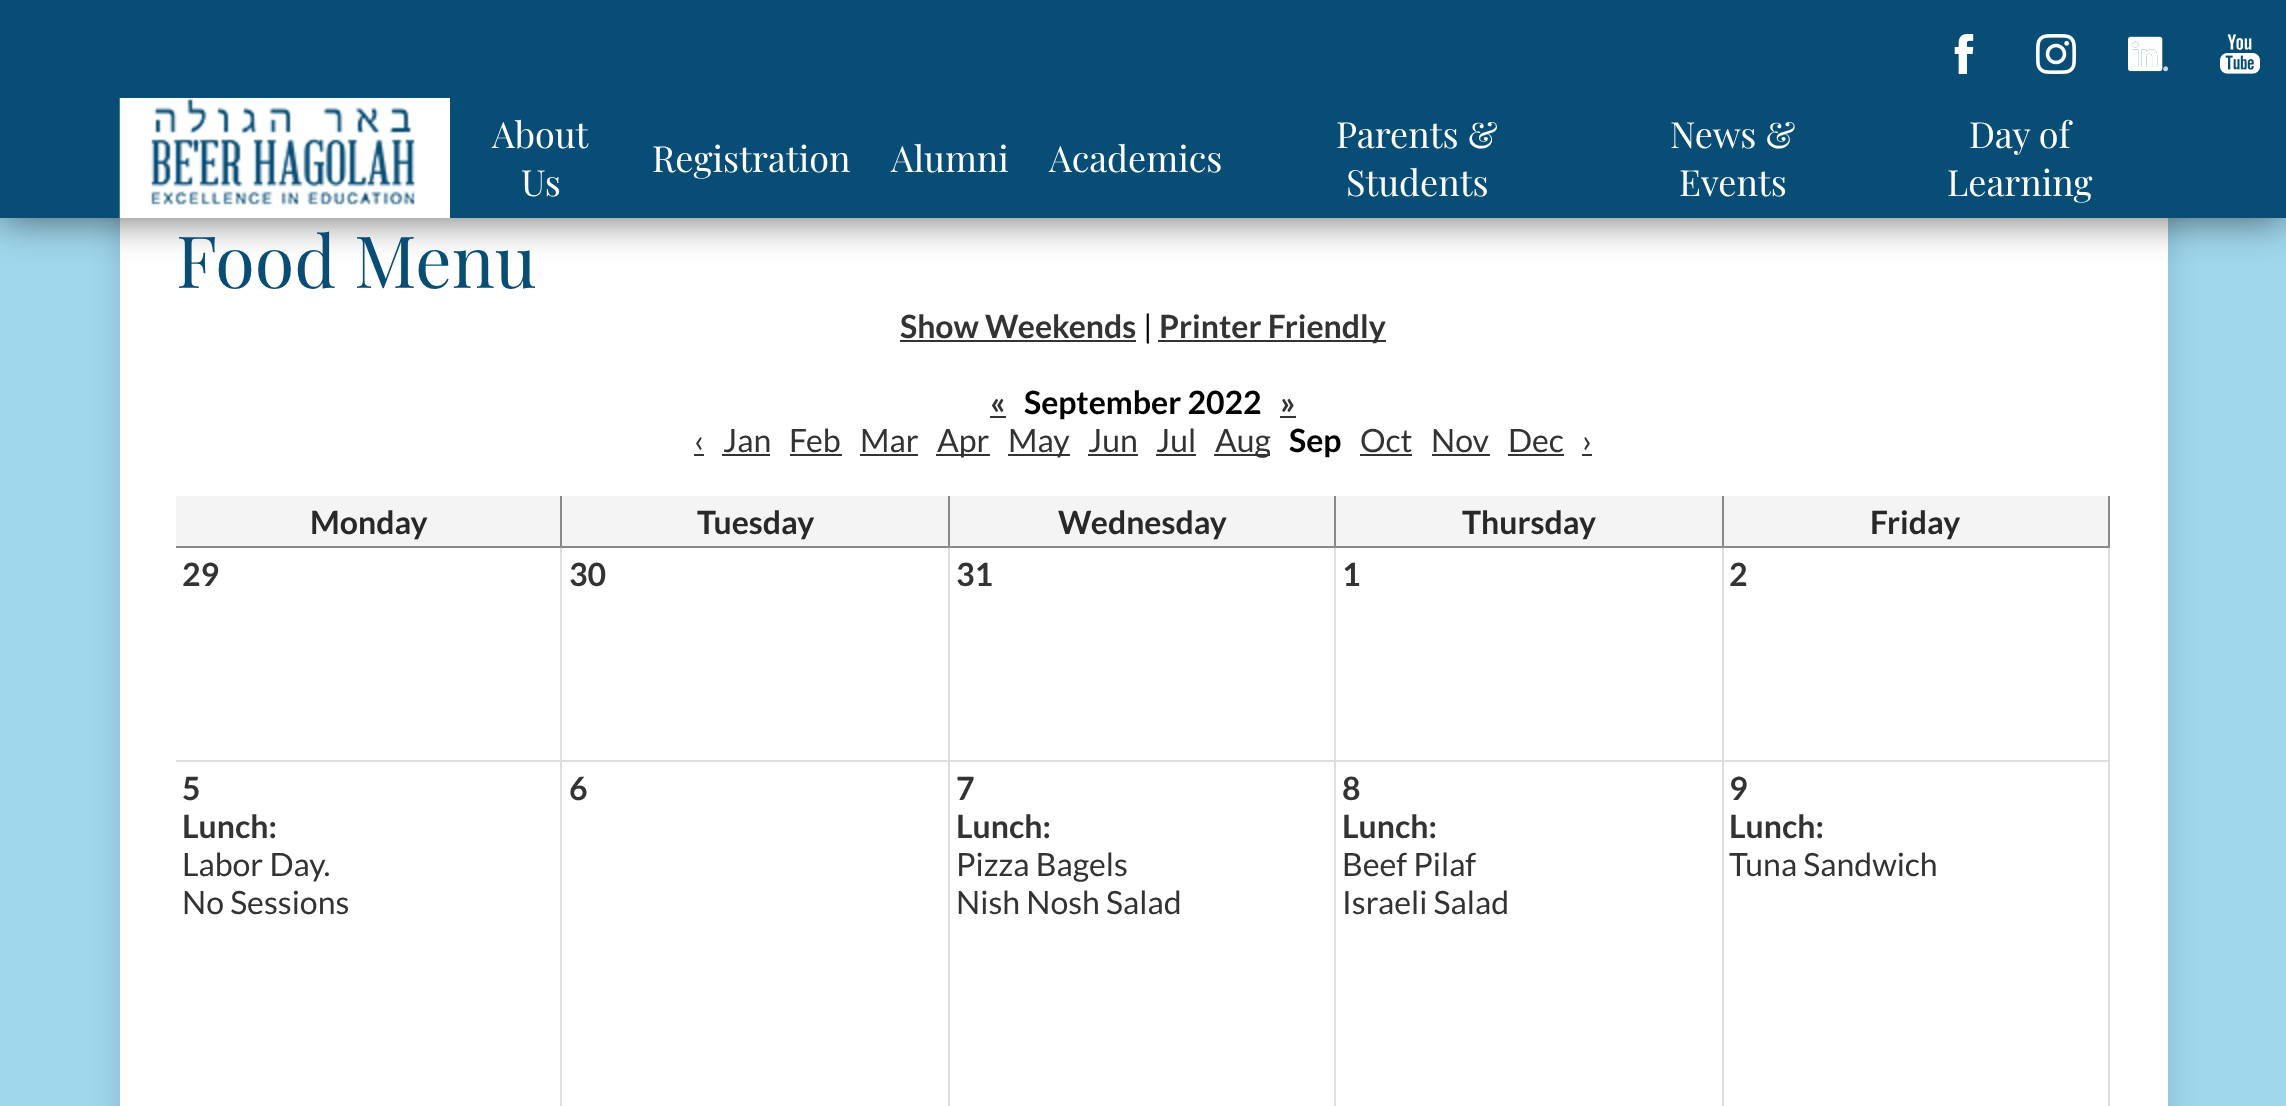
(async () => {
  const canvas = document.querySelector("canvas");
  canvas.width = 2286;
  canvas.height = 1106;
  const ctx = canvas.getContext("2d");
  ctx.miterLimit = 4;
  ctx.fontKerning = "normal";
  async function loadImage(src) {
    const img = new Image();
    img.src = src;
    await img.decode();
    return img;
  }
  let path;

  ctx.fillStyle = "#a0d7ed";
  ctx.fillRect(0, 0, 2286, 1106);
  ctx.fillStyle = "rgba(0, 0, 0, 0.15)";
  ctx.filter = "blur(15px)";
  ctx.beginPath();
  ctx.rect(120, 160, 2048, 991);
  ctx.fill();
  ctx.filter = "none";
  ctx.fillStyle = "#ffffff";
  ctx.fillRect(120, 218, 2048, 888);
  ctx.fillStyle = "rgba(0, 0, 0, 0.6)";
  ctx.filter = "blur(20px)";
  ctx.beginPath();
  ctx.rect(0, 0, 2286, 218);
  ctx.fill();
  ctx.filter = "none";
  ctx.fillStyle = "#084d75";
  ctx.fillRect(0, 0, 2286, 218);
  ctx.drawImage(await loadImage("img/1.png"), 1954, 34, 20, 40);
  ctx.drawImage(await loadImage("img/2.png"), 2036, 34, 40, 40);
  ctx.drawImage(await loadImage("img/3.png"), 2128, 36, 40, 36);
  ctx.drawImage(await loadImage("img/4.png"), 2220, 34, 40, 40);
  ctx.fillStyle = "#ffffff";
  ctx.fillRect(120, 98, 330, 120);
  ctx.drawImage(await loadImage("img/5.png"), 119, 98, 296, 120);
  for (const [x, y, w, h, color] of [
    [900, 340, 236, 2, "#333333"],
    [1158, 340, 228, 2, "#333333"],
    [990, 416, 16, 2, "#333333"],
    [1280, 416, 16, 2, "#333333"],
    [694, 454, 10, 2, "#333333"],
    [722, 454, 48, 2, "#333333"],
    [790, 454, 52, 2, "#333333"],
    [860, 454, 58, 2, "#333333"],
    [936, 454, 54, 2, "#333333"],
    [1008, 454, 62, 2, "#333333"],
    [1088, 454, 50, 2, "#333333"],
    [1156, 454, 40, 2, "#333333"],
    [1214, 454, 56, 2, "#333333"],
    [1360, 454, 52, 2, "#333333"],
    [1432, 454, 58, 2, "#333333"],
    [1508, 454, 56, 2, "#333333"],
    [1582, 454, 10, 2, "#333333"],
    [176, 496, 1934, 52, "#f4f4f4"],
  ]) {
    ctx.fillStyle = color;
    ctx.fillRect(x, y, w, h);
  }
  ctx.fillStyle = "#898989";
  path = new Path2D("M562 496V548L560 546V496Z");
  ctx.fill(path);
  ctx.fillStyle = "rgba(0, 0, 0, 0.44)";
  path = new Path2D("M562 548H176V546H560Z");
  ctx.fill(path);
  ctx.fillStyle = "#898989";
  path = new Path2D("M950 496V548L948 546V496Z");
  ctx.fill(path);
  ctx.fillStyle = "rgba(0, 0, 0, 0.44)";
  path = new Path2D("M950 548H562V546H948Z");
  ctx.fill(path);
  ctx.fillStyle = "#898989";
  path = new Path2D("M1336 496V548L1334 546V496Z");
  ctx.fill(path);
  ctx.fillStyle = "rgba(0, 0, 0, 0.44)";
  path = new Path2D("M1336 548H950V546H1334Z");
  ctx.fill(path);
  ctx.fillStyle = "#898989";
  path = new Path2D("M1724 496V548L1722 546V496Z");
  ctx.fill(path);
  ctx.fillStyle = "rgba(0, 0, 0, 0.44)";
  path = new Path2D("M1724 548H1336V546H1722Z");
  ctx.fill(path);
  ctx.fillStyle = "#898989";
  path = new Path2D("M2110 496V548L2108 546V496Z");
  ctx.fill(path);
  ctx.fillStyle = "rgba(0, 0, 0, 0.44)";
  path = new Path2D("M2110 548H1724V546H2108Z");
  ctx.fill(path);
  ctx.fillStyle = "#dedede";
  path = new Path2D("M562 548V762L560 760V548Z");
  ctx.fill(path);
  ctx.fillStyle = "rgba(0, 0, 0, 0.13)";
  path = new Path2D("M562 762H176V760H560Z");
  ctx.fill(path);
  ctx.fillStyle = "#dedede";
  path = new Path2D("M950 548V762L948 760V548Z");
  ctx.fill(path);
  ctx.fillStyle = "rgba(0, 0, 0, 0.13)";
  path = new Path2D("M950 762H562V760H948Z");
  ctx.fill(path);
  ctx.fillStyle = "#dedede";
  path = new Path2D("M1336 548V762L1334 760V548Z");
  ctx.fill(path);
  ctx.fillStyle = "rgba(0, 0, 0, 0.13)";
  path = new Path2D("M1336 762H950V760H1334Z");
  ctx.fill(path);
  ctx.fillStyle = "#dedede";
  path = new Path2D("M1724 548V762L1722 760V548Z");
  ctx.fill(path);
  ctx.fillStyle = "rgba(0, 0, 0, 0.13)";
  path = new Path2D("M1724 762H1336V760H1722Z");
  ctx.fill(path);
  ctx.fillStyle = "#dedede";
  path = new Path2D("M2110 548V762L2108 760V548Z");
  ctx.fill(path);
  ctx.fillStyle = "rgba(0, 0, 0, 0.13)";
  path = new Path2D("M2110 762H1724V760H2108Z");
  ctx.fill(path);
  ctx.fillStyle = "#dedede";
  path = new Path2D("M562 762V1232L560 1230V762Z");
  ctx.fill(path);
  path = new Path2D("M950 762V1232L948 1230V762Z");
  ctx.fill(path);
  path = new Path2D("M1336 762V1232L1334 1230V762Z");
  ctx.fill(path);
  path = new Path2D("M1724 762V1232L1722 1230V762Z");
  ctx.fill(path);
  path = new Path2D("M2110 762V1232L2108 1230V762Z");
  ctx.fill(path);
  ctx.font = "36px Playfair Display";
  ctx.fillStyle = "#ffffff";
  for (const [text, x, y] of [
    ["About", 492, 148],
    ["Us", 521, 196],
    ["Registration", 652, 172],
    ["Alumni", 891, 172],
    ["Academics", 1049, 172],
    ["Parents &", 1336, 148],
    ["Students", 1346, 196],
    ["News &", 1670, 148],
    ["Events", 1679, 196],
    ["Day of", 1969, 148],
    ["Learning", 1947, 196],
  ]) {
    ctx.fillText(text, x, y);
  }
  ctx.font = "72px Playfair Display";
  ctx.fillStyle = "#084d75";
  ctx.fillText("Food Menu", 176, 288);
  ctx.font = "bold 32px Lato";
  ctx.fillStyle = "#333333";
  ctx.fillText("Show Weekends", 900, 338);
  ctx.font = "32px Lato";
  ctx.fillStyle = "#000000";
  ctx.fillText("|", 1143, 338);
  ctx.font = "bold 32px Lato";
  ctx.fillStyle = "#333333";
  ctx.fillText("Printer Friendly", 1159, 338);
  ctx.fillText("«", 990, 414);
  ctx.fillStyle = "#000000";
  ctx.fillText("September 2022", 1024, 414);
  ctx.fillStyle = "#333333";
  ctx.fillText("»", 1280, 414);
  ctx.font = "32px Lato";
  for (const [text, x, y] of [
    ["‹", 694, 452],
    ["Jan", 723, 452],
    ["Feb", 789, 452],
    ["Mar", 860, 452],
    ["Apr", 937, 452],
    ["May", 1008, 452],
    ["Jun", 1088, 452],
    ["Jul", 1156, 452],
    ["Aug", 1215, 452],
  ]) {
    ctx.fillText(text, x, y);
  }
  ctx.font = "bold 32px Lato";
  ctx.fillStyle = "#000000";
  ctx.fillText("Sep", 1289, 452);
  ctx.font = "32px Lato";
  ctx.fillStyle = "#333333";
  for (const [text, x, y] of [
    ["Oct", 1360, 452],
    ["Nov", 1431, 452],
    ["Dec", 1508, 452],
    ["›", 1582, 452],
  ]) {
    ctx.fillText(text, x, y);
  }
  ctx.font = "bold 32px Lato";
  ctx.fillStyle = "#282828";
  for (const [text, x, y] of [
    ["Monday", 310, 534],
    ["Tuesday", 697, 534],
    ["Wednesday", 1058, 534],
    ["Thursday", 1462, 534],
    ["Friday", 1870, 534],
  ]) {
    ctx.fillText(text, x, y);
  }
  ctx.fillStyle = "#333333";
  for (const [text, x, y] of [
    ["29", 182, 586],
    ["30", 569, 586],
    ["31", 956, 586],
    ["1", 1342, 586],
    ["2", 1729, 586],
    ["5", 182, 800],
    ["Lunch:", 182, 838],
  ]) {
    ctx.fillText(text, x, y);
  }
  ctx.font = "32px Lato";
  ctx.fillText("Labor Day.", 182, 876);
  ctx.fillText("No Sessions", 182, 914);
  ctx.font = "bold 32px Lato";
  for (const [text, x, y] of [
    ["6", 569, 800],
    ["7", 956, 800],
    ["Lunch:", 956, 838],
  ]) {
    ctx.fillText(text, x, y);
  }
  ctx.font = "32px Lato";
  ctx.fillText("Pizza Bagels", 956, 876);
  ctx.fillText("Nish Nosh Salad", 956, 914);
  ctx.font = "bold 32px Lato";
  ctx.fillText("8", 1342, 800);
  ctx.fillText("Lunch:", 1342, 838);
  ctx.font = "32px Lato";
  ctx.fillText("Beef Pilaf", 1342, 876);
  ctx.fillText("Israeli Salad", 1342, 914);
  ctx.font = "bold 32px Lato";
  ctx.fillText("9", 1729, 800);
  ctx.fillText("Lunch:", 1729, 838);
  ctx.font = "32px Lato";
  ctx.fillText("Tuna Sandwich", 1729, 876);
})();
